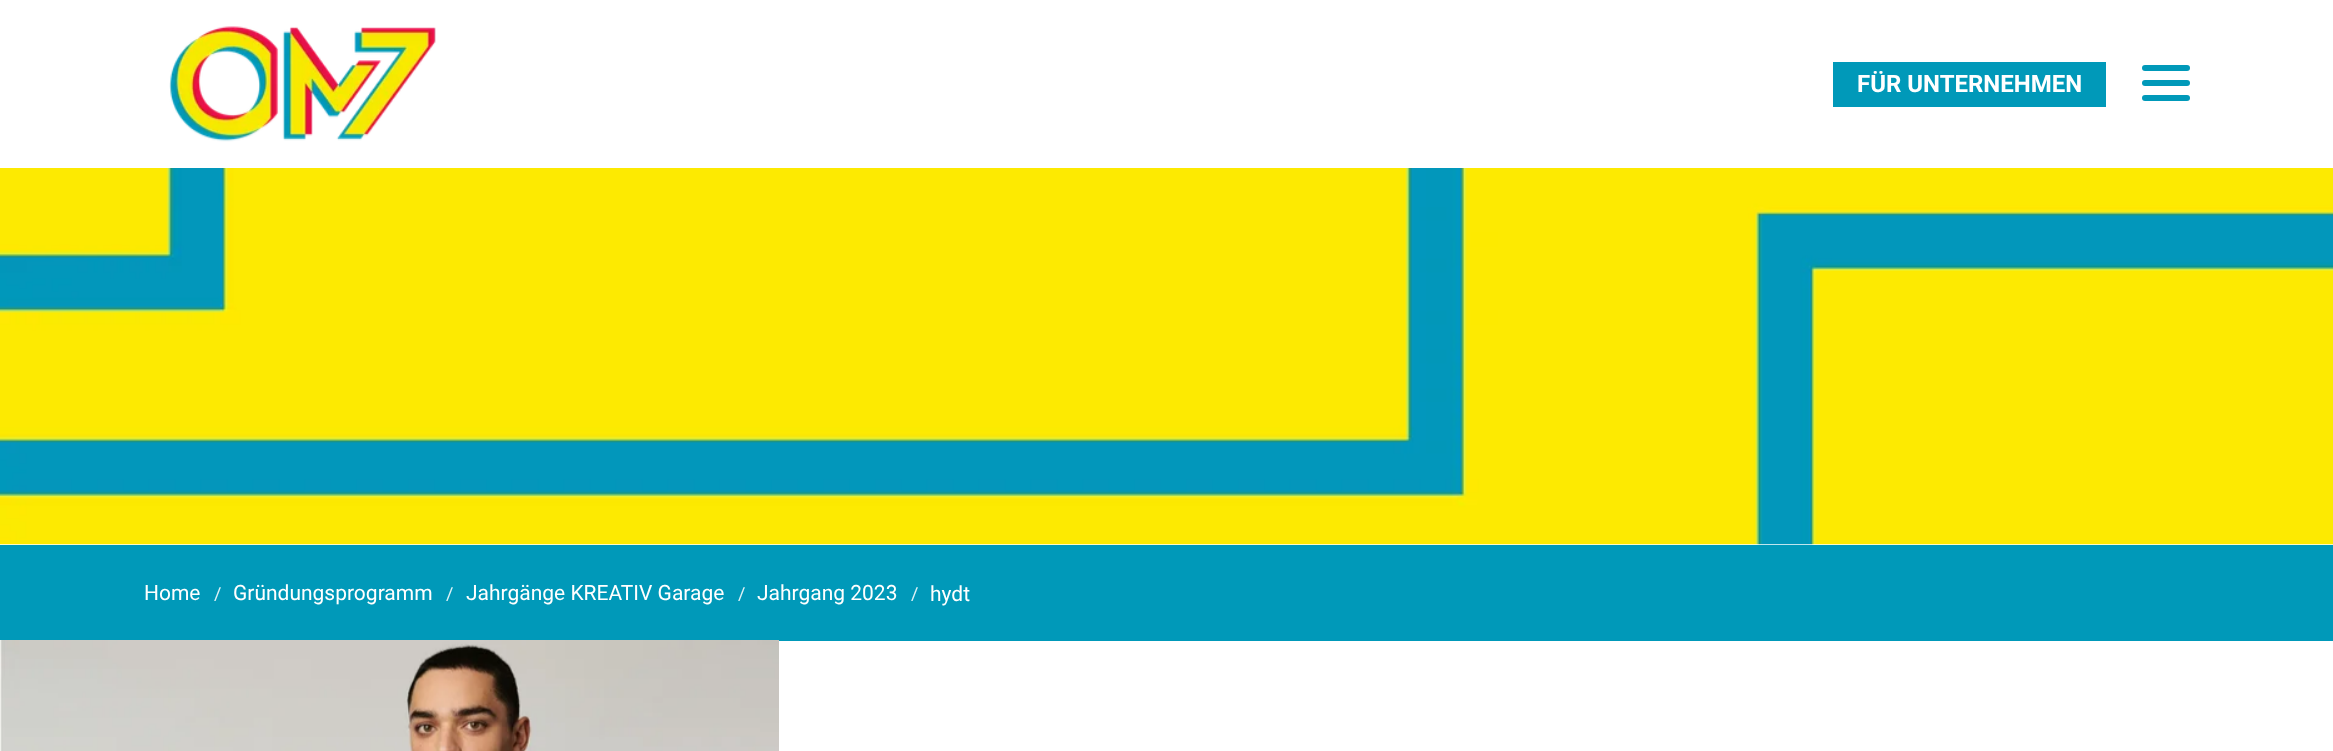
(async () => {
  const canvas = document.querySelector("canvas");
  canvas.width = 2333;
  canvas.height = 751;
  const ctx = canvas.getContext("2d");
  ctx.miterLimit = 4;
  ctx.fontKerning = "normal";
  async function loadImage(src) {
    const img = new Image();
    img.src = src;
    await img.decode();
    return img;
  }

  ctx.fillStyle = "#ffffff";
  ctx.fillRect(0, 0, 2333, 751);
  ctx.drawImage(await loadImage("img/1.png"), 169, 26, 267, 116);
  ctx.fillStyle = "#0099b9";
  ctx.fillRect(1833, 62, 273, 45);
  ctx.beginPath();
  ctx.roundRect(2142, 65, 48, 6, 3);
  ctx.fill();
  ctx.beginPath();
  ctx.roundRect(2142, 80, 48, 6, 3);
  ctx.fill();
  ctx.beginPath();
  ctx.roundRect(2142, 95, 48, 6, 3);
  ctx.fill();
  ctx.drawImage(await loadImage("img/2.png"), 0, 168, 2333, 377);
  ctx.fillRect(0, 545, 2333, 96);
  ctx.drawImage(await loadImage("img/3.png"), 0, 640, 779, 111);
  ctx.font = "bold 24px Roboto";
  ctx.fillStyle = "#ffffff";
  ctx.fillText("FÜR UNTERNEHMEN", 1857, 92);
  ctx.font = "21px Roboto";
  ctx.fillText("Home", 144, 600);
  ctx.font = "18px Roboto";
  ctx.fillStyle = "#dff2f6";
  ctx.fillText("/", 214, 600);
  ctx.font = "21px Roboto";
  ctx.fillStyle = "#ffffff";
  ctx.fillText("Gründungsprogramm", 233, 600);
  ctx.font = "18px Roboto";
  ctx.fillStyle = "#dff2f6";
  ctx.fillText("/", 446, 600);
  ctx.font = "21px Roboto";
  ctx.fillStyle = "#ffffff";
  ctx.fillText("Jahrgänge KREATIV Garage", 466, 600);
  ctx.font = "18px Roboto";
  ctx.fillStyle = "#dff2f6";
  ctx.fillText("/", 738, 600);
  ctx.font = "21px Roboto";
  ctx.fillStyle = "#ffffff";
  ctx.fillText("Jahrgang 2023", 757, 600);
  ctx.font = "18px Roboto";
  ctx.fillStyle = "#dff2f6";
  ctx.fillText("/", 911, 600);
  ctx.font = "21px Roboto";
  ctx.fillStyle = "#ffffff";
  ctx.fillText("hydt", 930, 601);
})();
